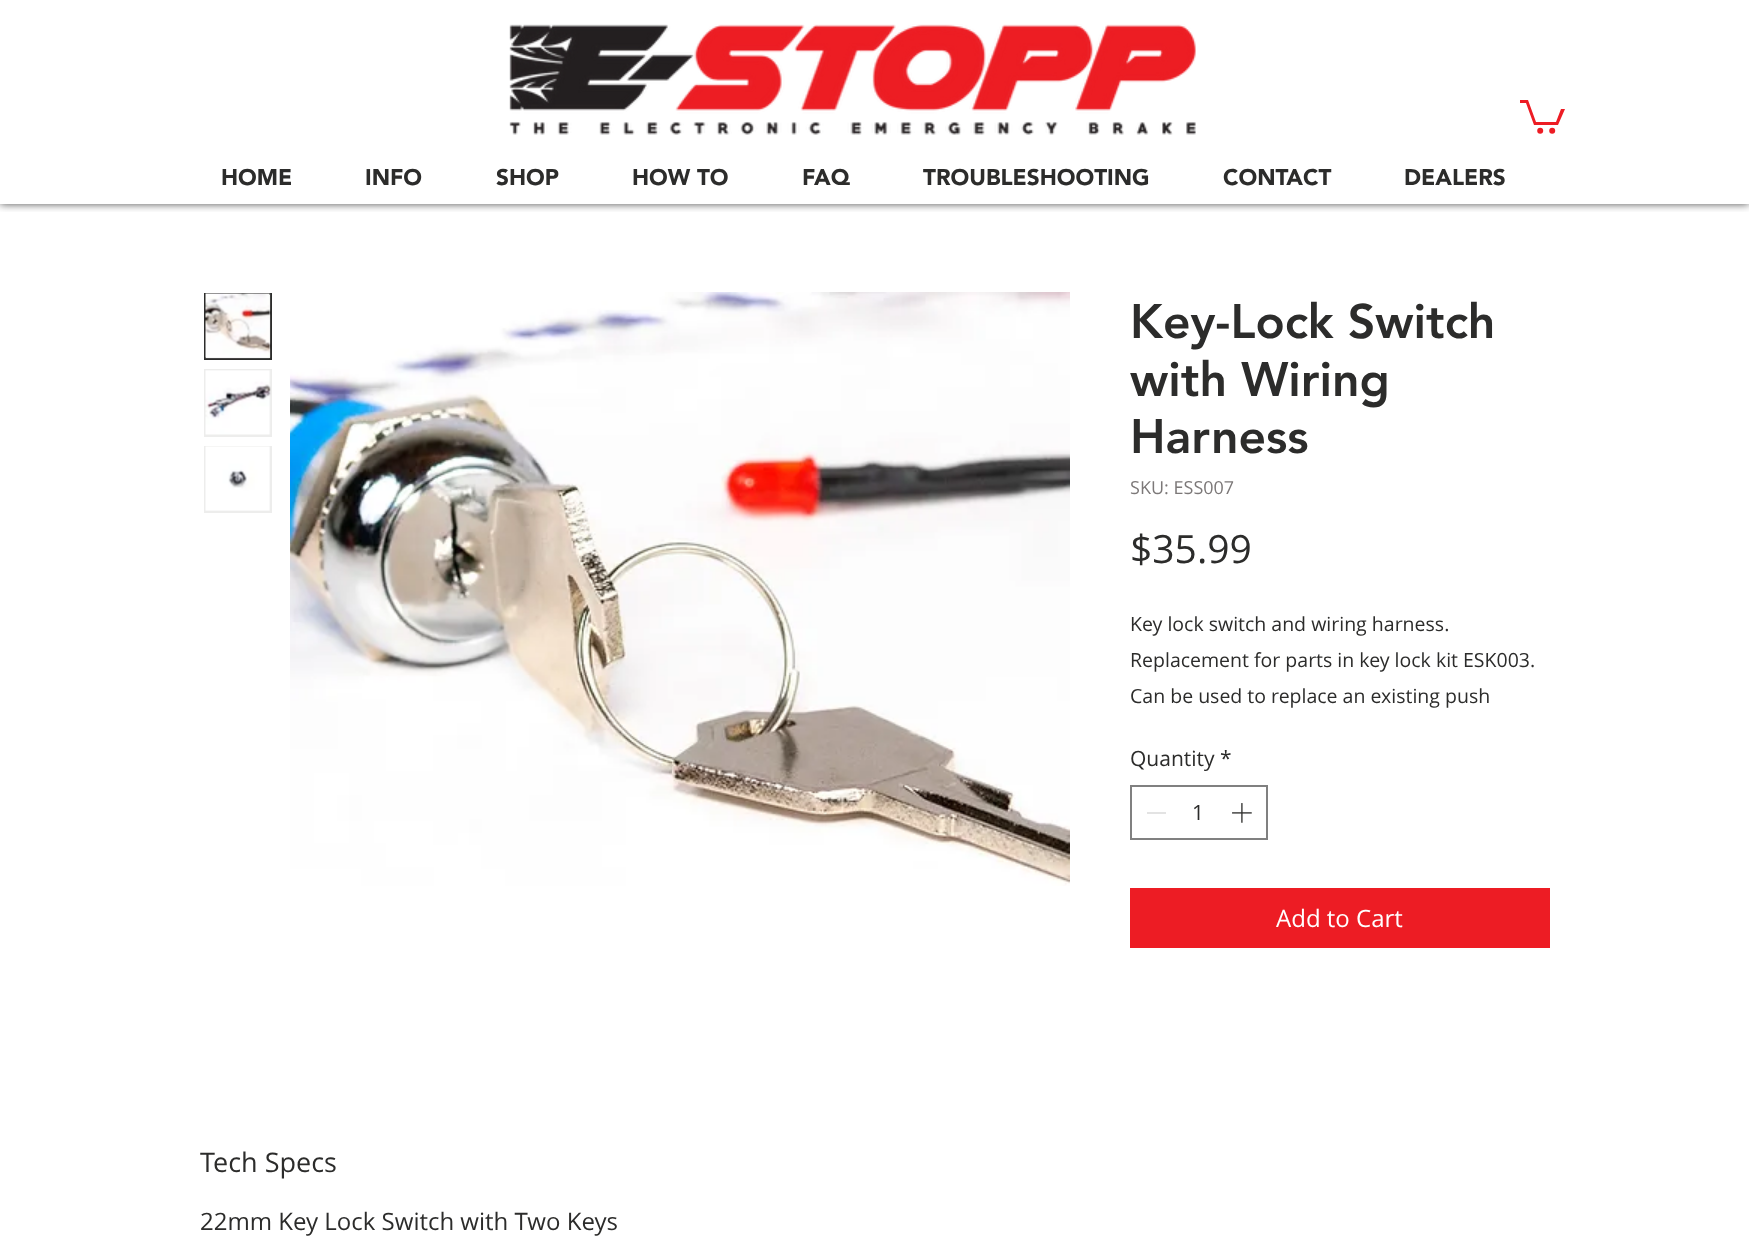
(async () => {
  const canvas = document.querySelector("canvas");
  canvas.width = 1749;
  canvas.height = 1257;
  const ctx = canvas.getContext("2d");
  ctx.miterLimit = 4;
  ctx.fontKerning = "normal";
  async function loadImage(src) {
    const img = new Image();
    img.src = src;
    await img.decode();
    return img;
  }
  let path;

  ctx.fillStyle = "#ffffff";
  ctx.fillRect(0, 0, 1749, 1257);
  ctx.save();
  ctx.beginPath();
  ctx.rect(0, 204, 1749, 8);
  ctx.clip();
  ctx.fillStyle = "rgba(0, 0, 0, 0.7)";
  ctx.filter = "blur(4px)";
  ctx.beginPath();
  ctx.rect(0, 0, 1749, 204);
  ctx.fill();
  ctx.filter = "none";
  ctx.restore();
  ctx.drawImage(await loadImage("img/1.png"), 509, 24, 687, 111);
  ctx.fillStyle = "#ed1c24";
  path = new Path2D("M1565 109L1558 125H1534L1526 103H1520V100H1528L1536 122H1556L1561 109");
  ctx.fill(path);
  ctx.beginPath();
  ctx.arc(1552.2, 130.8, 3, 0, Math.PI * 2);
  ctx.fill();
  ctx.beginPath();
  ctx.arc(1540.2, 130.8, 3, 0, Math.PI * 2);
  ctx.fill();
  ctx.fillStyle = "#ededec";
  ctx.beginPath();
  ctx.rect(205, 294, 66, 65);
  ctx.fill();
  ctx.strokeStyle = "#2c2c2b";
  ctx.lineWidth = 2;
  ctx.stroke();
  ctx.drawImage(await loadImage("img/2.png"), 205, 293, 66, 66);
  ctx.fillRect(204, 369, 68, 68);
  ctx.drawImage(await loadImage("img/3.png"), 205, 370, 66, 65);
  ctx.fillRect(204, 446, 68, 67);
  ctx.drawImage(await loadImage("img/4.png"), 205, 446, 65, 65);
  ctx.drawImage(await loadImage("img/5.png"), 290, 292, 780, 594);
  ctx.strokeStyle = "#808080";
  ctx.strokeRect(1131, 786, 136, 53);
  ctx.fillStyle = "#e3e3e3";
  ctx.fillRect(1147, 812, 19, 2);
  ctx.drawImage(await loadImage("img/6.png"), 1232, 803, 20, 20);
  ctx.fillStyle = "#ed1c24";
  ctx.fillRect(1130, 888, 420, 60);
  ctx.font = "900 22.5px Avenir";
  ctx.fillStyle = "#2c2c2b";
  for (const [text, x, y] of [
    ["HOME", 221, 185],
    ["INFO", 365, 185],
    ["SHOP", 496, 185],
    ["HOW TO", 632, 185],
    ["FAQ", 802, 185],
    ["TROUBLESHOOTING", 923, 185],
    ["CONTACT", 1223, 185],
    ["DEALERS", 1404, 185],
  ]) {
    ctx.fillText(text, x, y);
  }
  ctx.font = "900 48px 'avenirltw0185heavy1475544'";
  for (const [text, x, y] of [
    ["Key-Lock Switch", 1130, 338],
    ["with Wiring", 1130, 396],
    ["Harness", 1130, 453],
  ]) {
    ctx.fillText(text, x, y);
  }
  ctx.font = "18px Open Sans";
  ctx.fillStyle = "#7c7878";
  ctx.fillText("SKU: ESS007", 1130, 494);
  ctx.font = "39px Open Sans";
  ctx.fillStyle = "#2c2c2b";
  ctx.fillText("$35.99", 1130, 563);
  ctx.font = "19.5px Open Sans";
  for (const [text, x, y] of [
    ["Key lock switch and wiring harness.", 1130, 631],
    ["Replacement for parts in key lock kit ESK003.", 1130, 667],
    ["Can be used to replace an existing push", 1130, 703],
  ]) {
    ctx.fillText(text, x, y);
  }
  ctx.font = "21px Open Sans";
  for (const [text, x, y] of [
    ["Quantity", 1130, 766],
    ["*", 1220, 766],
    ["1", 1192, 820],
  ]) {
    ctx.fillText(text, x, y);
  }
  ctx.font = "24px Open Sans";
  ctx.fillStyle = "#ffffff";
  ctx.fillText("Add to Cart", 1276, 927);
  ctx.save();
  ctx.beginPath();
  ctx.rect(200, 1143, 1350, 96);
  ctx.clip();
  ctx.font = "27px Open Sans";
  ctx.fillStyle = "#2c2c2b";
  ctx.fillText("Tech Specs", 200, 1172);
  ctx.restore();
  ctx.fillStyle = "#2c2c2b";
  ctx.fillText("22mm Key Lock Switch with Two Keys", 200, 1230);
})();
